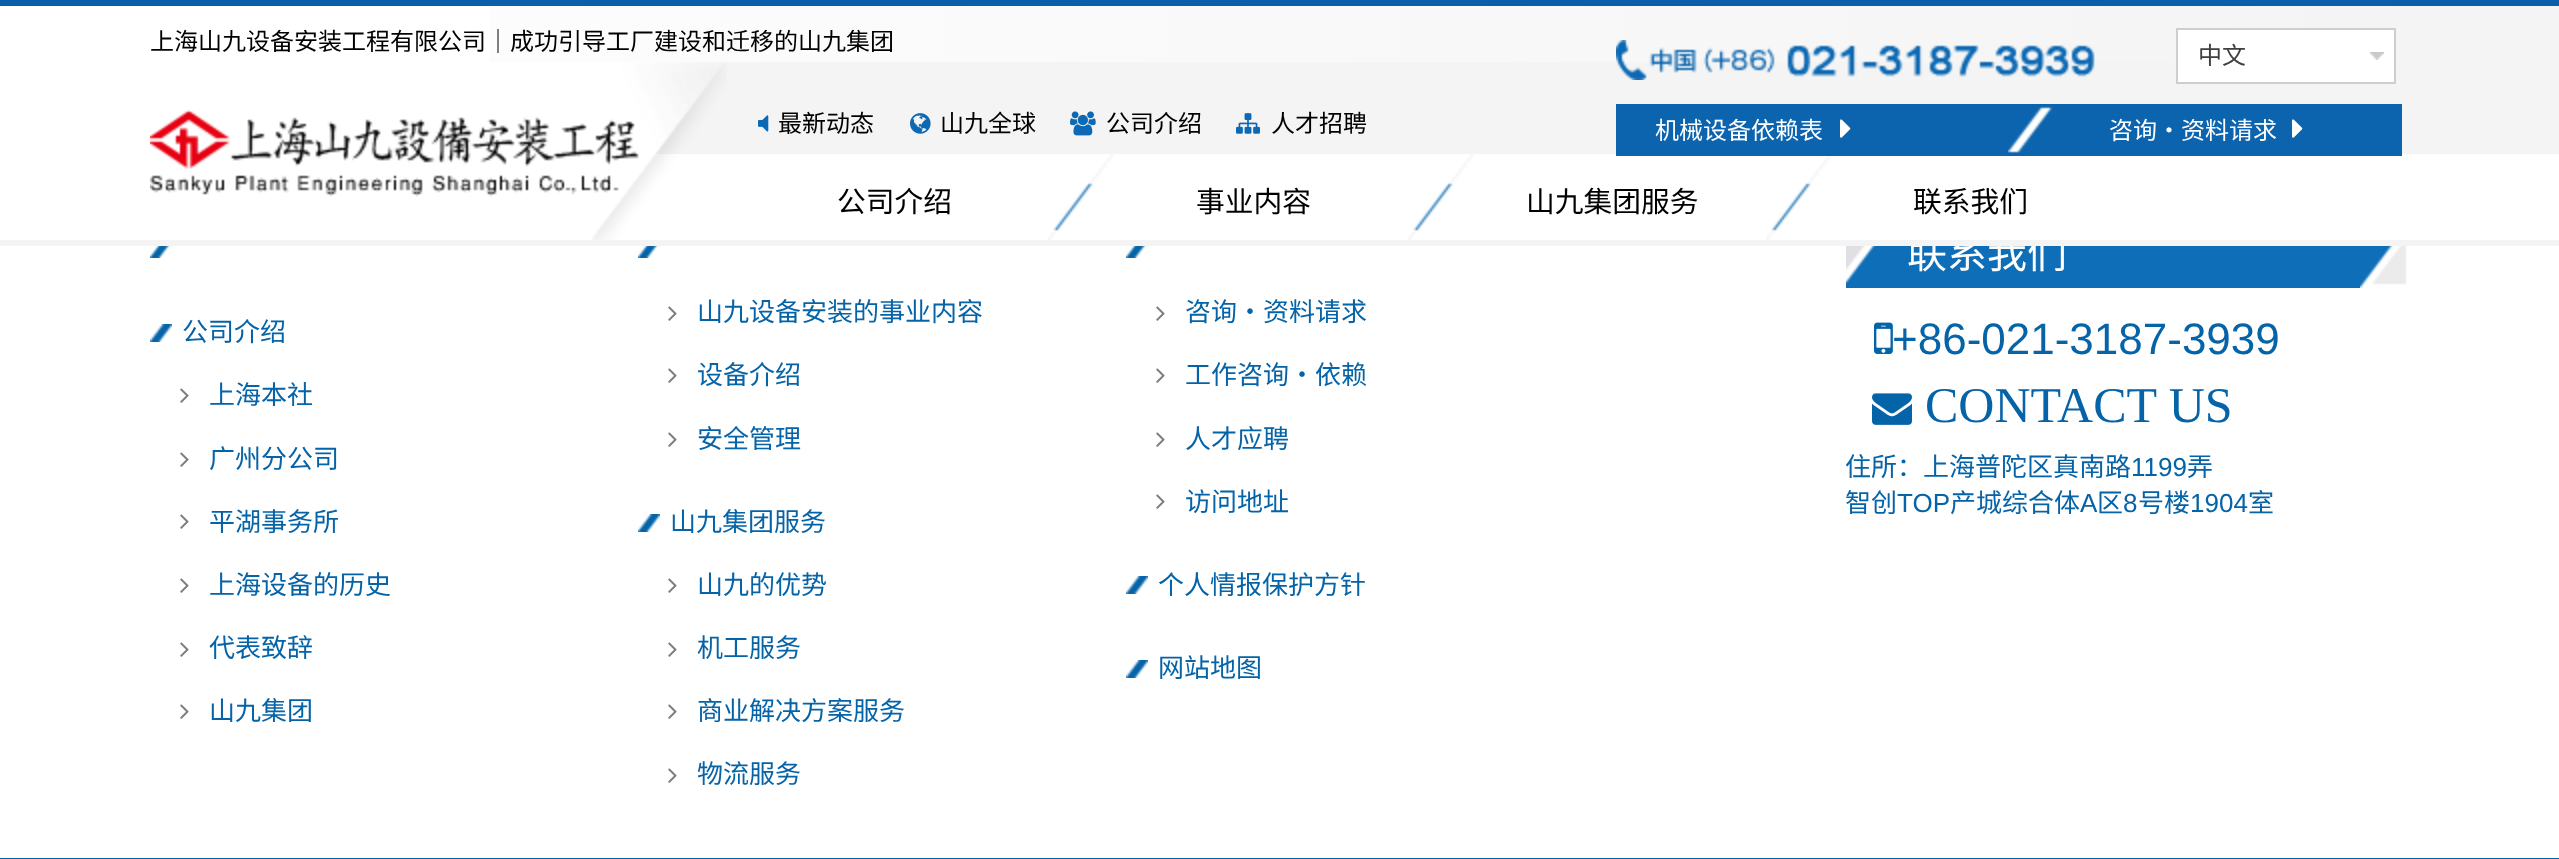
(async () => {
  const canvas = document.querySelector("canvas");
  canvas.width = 2559;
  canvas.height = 859;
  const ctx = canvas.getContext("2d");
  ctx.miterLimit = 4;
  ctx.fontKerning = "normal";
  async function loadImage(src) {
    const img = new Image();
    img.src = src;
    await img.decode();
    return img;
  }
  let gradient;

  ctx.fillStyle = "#ffffff";
  ctx.fillRect(0, 0, 2559, 859);
  ctx.fillStyle = "#0b5faa";
  ctx.fillRect(0, 0, 2559, 6);
  ctx.fillStyle = "#f4f4f4";
  ctx.fillRect(611, 62, 1799, 92);
  gradient = ctx.createLinearGradient(150, 34, 2410, 34);
  gradient.addColorStop(0, "#fefefe");
  gradient.addColorStop(1, "#f4f4f4");
  ctx.fillStyle = gradient;
  ctx.fillRect(489, 6, 1921, 56);
  ctx.fillStyle = "#f4f4f4";
  ctx.fillRect(2410, 6, 149, 148);
  ctx.drawImage(await loadImage("img/1.png"), 150, 62, 577, 178);
  ctx.drawImage(await loadImage("img/2.png"), 1616, 40, 479, 40);
  ctx.fillStyle = "#ffffff";
  ctx.fillRect(2178, 30, 216, 52);
  ctx.drawImage(await loadImage("img/3.png"), 2370, 52, 14, 8);
  ctx.strokeStyle = "#cecece";
  ctx.lineWidth = 2;
  ctx.strokeRect(2177, 29, 218, 54);
  ctx.fillStyle = "#0c64ae";
  ctx.fillRect(1616, 104, 786, 52);
  ctx.drawImage(await loadImage("img/4.png"), 1840, 119, 11, 19);
  ctx.drawImage(await loadImage("img/5.png"), 2008, 106, 45, 47);
  ctx.drawImage(await loadImage("img/4.png"), 2292, 119, 11, 19);
  ctx.drawImage(await loadImage("img/6.png"), 758, 115, 11, 17);
  ctx.drawImage(await loadImage("img/7.png"), 910, 113, 21, 21);
  ctx.drawImage(await loadImage("img/8.png"), 1070, 111, 26, 25);
  ctx.drawImage(await loadImage("img/9.png"), 1236, 113, 24, 21);
  ctx.drawImage(await loadImage("img/10.png"), 1048, 154, 66, 86);
  ctx.drawImage(await loadImage("img/11.png"), 1408, 154, 66, 86);
  ctx.drawImage(await loadImage("img/12.png"), 1766, 156, 66, 84);
  ctx.drawImage(await loadImage("img/13.png"), 150, 246, 21, 12);
  ctx.drawImage(await loadImage("img/14.png"), 150, 324, 22, 18);
  ctx.drawImage(await loadImage("img/15.png"), 180, 388, 9, 15);
  ctx.drawImage(await loadImage("img/15.png"), 180, 452, 9, 15);
  ctx.drawImage(await loadImage("img/15.png"), 180, 514, 9, 15);
  ctx.drawImage(await loadImage("img/15.png"), 180, 578, 9, 15);
  ctx.drawImage(await loadImage("img/15.png"), 180, 642, 9, 15);
  ctx.drawImage(await loadImage("img/15.png"), 180, 704, 9, 15);
  ctx.drawImage(await loadImage("img/13.png"), 638, 246, 21, 12);
  ctx.drawImage(await loadImage("img/15.png"), 668, 306, 9, 15);
  ctx.drawImage(await loadImage("img/15.png"), 668, 368, 9, 15);
  ctx.drawImage(await loadImage("img/15.png"), 668, 432, 9, 15);
  ctx.drawImage(await loadImage("img/14.png"), 638, 514, 22, 18);
  ctx.drawImage(await loadImage("img/15.png"), 668, 578, 9, 15);
  ctx.drawImage(await loadImage("img/15.png"), 668, 642, 9, 15);
  ctx.drawImage(await loadImage("img/15.png"), 668, 704, 9, 15);
  ctx.drawImage(await loadImage("img/15.png"), 668, 768, 9, 15);
  ctx.drawImage(await loadImage("img/13.png"), 1126, 246, 21, 12);
  ctx.drawImage(await loadImage("img/15.png"), 1156, 306, 9, 15);
  ctx.drawImage(await loadImage("img/15.png"), 1156, 368, 9, 15);
  ctx.drawImage(await loadImage("img/15.png"), 1156, 432, 9, 15);
  ctx.drawImage(await loadImage("img/15.png"), 1156, 494, 9, 15);
  ctx.drawImage(await loadImage("img/14.png"), 1126, 576, 22, 18);
  ctx.drawImage(await loadImage("img/14.png"), 1126, 660, 22, 18);
  ctx.fillStyle = "#0e6eb8";
  ctx.fillRect(1846, 246, 514, 42);
  ctx.drawImage(await loadImage("img/16.png"), 1846, 246, 47, 38);
  ctx.drawImage(await loadImage("img/17.png"), 2360, 246, 50, 42);
  ctx.drawImage(await loadImage("img/18.png"), 1874, 322, 19, 32);
  ctx.drawImage(await loadImage("img/19.png"), 1872, 393, 40, 32);
  ctx.fillStyle = "#0568ac";
  ctx.fillRect(0, 858, 2559, 1);
  ctx.font = "24px Noto Sans CJK SC";
  ctx.fillStyle = "#000000";
  ctx.fillText("上海山九设备安装工程有限公司｜成功引导工厂建设和迁移的山九集团", 150, 50);
  ctx.fillStyle = "#404040";
  ctx.fillText("中文", 2198, 64);
  ctx.fillStyle = "#ffffff";
  ctx.fillText("机械设备依赖表", 1655, 139);
  ctx.fillText("咨询・资料请求", 2109, 139);
  ctx.fillStyle = "#000000";
  for (const [text, x, y] of [
    ["最新动态", 778, 132],
    ["山九全球", 940, 132],
    ["公司介绍", 1106, 132],
    ["人才招聘", 1271, 132],
  ]) {
    ctx.fillText(text, x, y);
  }
  ctx.font = "28.75px Noto Sans CJK SC";
  for (const [text, x, y] of [
    ["公司介绍", 837, 212],
    ["事业内容", 1196, 212],
    ["山九集团服务", 1526, 212],
    ["联系我们", 1913, 212],
  ]) {
    ctx.fillText(text, x, y);
  }
  ctx.font = "26px Noto Sans CJK SC";
  ctx.fillStyle = "#0563a8";
  for (const [text, x, y] of [
    ["公司介绍", 182, 341],
    ["上海本社", 209, 404],
    ["广州分公司", 209, 468],
    ["平湖事务所", 209, 531],
    ["上海设备的历史", 209, 594],
    ["代表致辞", 209, 657],
    ["山九集团", 209, 720],
    ["山九设备安装的事业内容", 697, 321],
    ["设备介绍", 697, 384],
    ["安全管理", 697, 448],
    ["山九集团服务", 670, 531],
    ["山九的优势", 697, 594],
    ["机工服务", 697, 657],
    ["商业解决方案服务", 697, 720],
    ["物流服务", 697, 783],
    ["咨询・资料请求", 1185, 321],
    ["工作咨询・依赖", 1185, 384],
    ["人才应聘", 1185, 448],
    ["访问地址", 1185, 511],
    ["个人情报保护方针", 1158, 594],
    ["网站地图", 1158, 677],
  ]) {
    ctx.fillText(text, x, y);
  }
  ctx.font = "40px Noto Sans CJK SC";
  ctx.fillStyle = "#ffffff";
  ctx.fillText("联系我们", 1907, 268);
  ctx.fillStyle = "#f4f4f4";
  ctx.fillRect(0, 240, 2559, 6);
  ctx.font = "44px Liberation Sans";
  ctx.fillStyle = "#0563a8";
  ctx.fillText("+86-021-3187-3939", 1892, 354);
  ctx.font = "50px Liberation Serif";
  ctx.fillText("CONTACT US", 1925, 422);
  ctx.font = "26px Noto Sans CJK SC";
  ctx.fillText("住所：上海普陀区真南路", 1845, 476);
  ctx.font = "26px Liberation Sans";
  ctx.fillText("1199", 2131, 476);
  ctx.font = "26px Noto Sans CJK SC";
  ctx.fillText("弄", 2187, 476);
  ctx.fillText("智创", 1845, 512);
  ctx.font = "26px Liberation Sans";
  ctx.fillText("TOP", 1897, 512);
  ctx.font = "26px Noto Sans CJK SC";
  ctx.fillText("产城综合体", 1950, 512);
  ctx.font = "26px Liberation Sans";
  ctx.fillText("A", 2080, 512);
  ctx.font = "26px Noto Sans CJK SC";
  ctx.fillText("区", 2097, 512);
  ctx.font = "26px Liberation Sans";
  ctx.fillText("8", 2123, 512);
  ctx.font = "26px Noto Sans CJK SC";
  ctx.fillText("号楼", 2138, 512);
  ctx.font = "26px Liberation Sans";
  ctx.fillText("1904", 2190, 512);
  ctx.font = "26px Noto Sans CJK SC";
  ctx.fillText("室", 2248, 512);
})();
